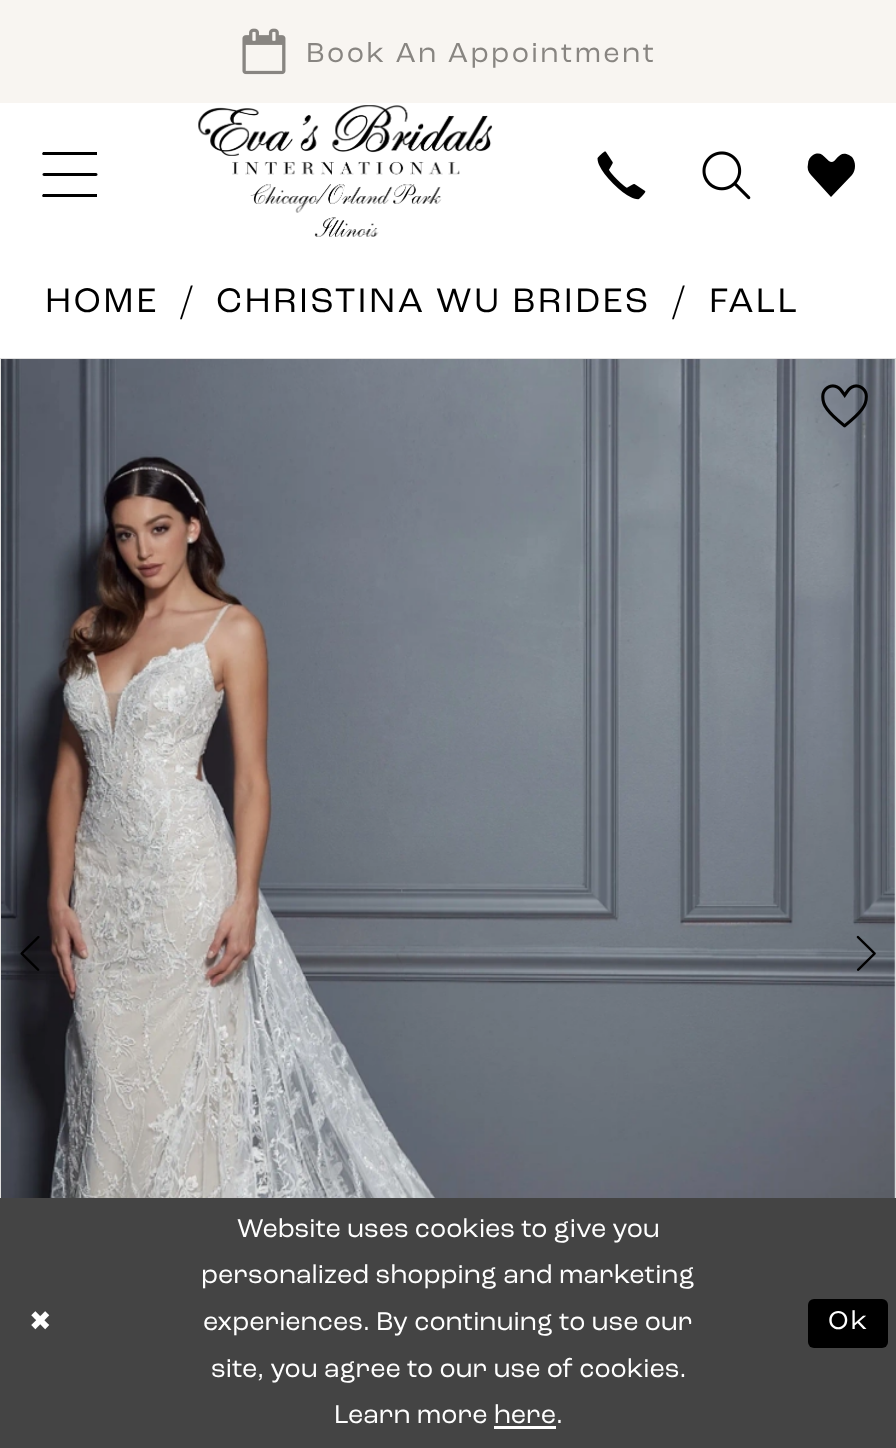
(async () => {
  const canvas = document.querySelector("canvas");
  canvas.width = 896;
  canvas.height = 1448;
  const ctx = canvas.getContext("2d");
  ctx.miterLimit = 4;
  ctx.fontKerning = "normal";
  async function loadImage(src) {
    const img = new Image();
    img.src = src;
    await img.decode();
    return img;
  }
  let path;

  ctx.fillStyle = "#ffffff";
  ctx.fillRect(0, 0, 896, 1448);
  ctx.fillStyle = "#f8f5f1";
  ctx.fillRect(0, 0, 896, 103);
  ctx.drawImage(await loadImage("img/1.png"), 242, 28, 44, 47);
  ctx.fillStyle = "#000000";
  path = new Path2D("M42 154L43 155H97V154V152H43ZM44 176C42 176 42 173 44 173H96C98 173 98 176 96 176ZM42 196L43 197H97V196V194H43Z");
  ctx.fill(path);
  ctx.drawImage(await loadImage("img/2.png"), 198, 105, 295, 132);
  ctx.drawImage(await loadImage("img/3.png"), 597, 151, 49, 49);
  ctx.drawImage(await loadImage("img/4.png"), 702, 151, 49, 49);
  path = new Path2D("M852 175C856 170 856 162 852 157L849 155C839 150 837 161 832 162C826 162 823 149 813 155C810 157 808 160 808 164C807 168 808 172 811 175L831 197Z");
  ctx.fill(path);
  ctx.strokeStyle = "#e0e0e0";
  ctx.strokeRect(0.5, 358.5, 895, 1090);
  ctx.drawImage(await loadImage("img/5.png"), 1, 359, 894, 839);
  ctx.drawImage(await loadImage("img/6.png"), 20, 936, 20, 35);
  ctx.drawImage(await loadImage("img/7.png"), 856, 935, 20, 36);
  ctx.drawImage(await loadImage("img/8.png"), 821, 384, 47, 44);
  ctx.fillStyle = "#444444";
  ctx.fillRect(0, 1198, 896, 250);
  ctx.fillStyle = "#ffffff";
  ctx.fillRect(494, 1426, 62, 3);
  ctx.fillStyle = "#000000";
  ctx.beginPath();
  ctx.roundRect(808, 1299, 80, 49, 6);
  ctx.fill();
  ctx.letterSpacing = "2.4px";
  ctx.font = "28.75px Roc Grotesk";
  ctx.fillStyle = "#888581";
  ctx.fillText("Book An Appointment", 306, 62);
  ctx.font = "35.8px Roc Grotesk";
  ctx.fillStyle = "#000000";
  for (const [text, x, y] of [
    ["HOME", 45, 312],
    ["/", 181, 312],
    ["CHRISTINA WU BRIDES", 216, 312],
    ["/", 673, 312],
    ["FALL", 709, 312],
  ]) {
    ctx.fillText(text, x, y);
  }
  ctx.letterSpacing = "2px";
  ctx.font = "26.9px DejaVu Sans";
  ctx.fillStyle = "#ffffff";
  ctx.fillText("✖", 29, 1330);
  ctx.letterSpacing = "0px";
  ctx.font = "26.9px Roc Grotesk";
  for (const [text, x, y] of [
    ["Website uses cookies to give you", 237, 1237],
    ["personalized shopping and marketing", 201, 1283],
    ["experiences. By continuing to use our", 203, 1330],
    ["site, you agree to our use of cookies.", 211, 1377],
    ["Learn more here.", 334, 1423],
  ]) {
    ctx.fillText(text, x, y);
  }
  ctx.letterSpacing = "2px";
  ctx.fillText("Ok", 828, 1329);
})();
